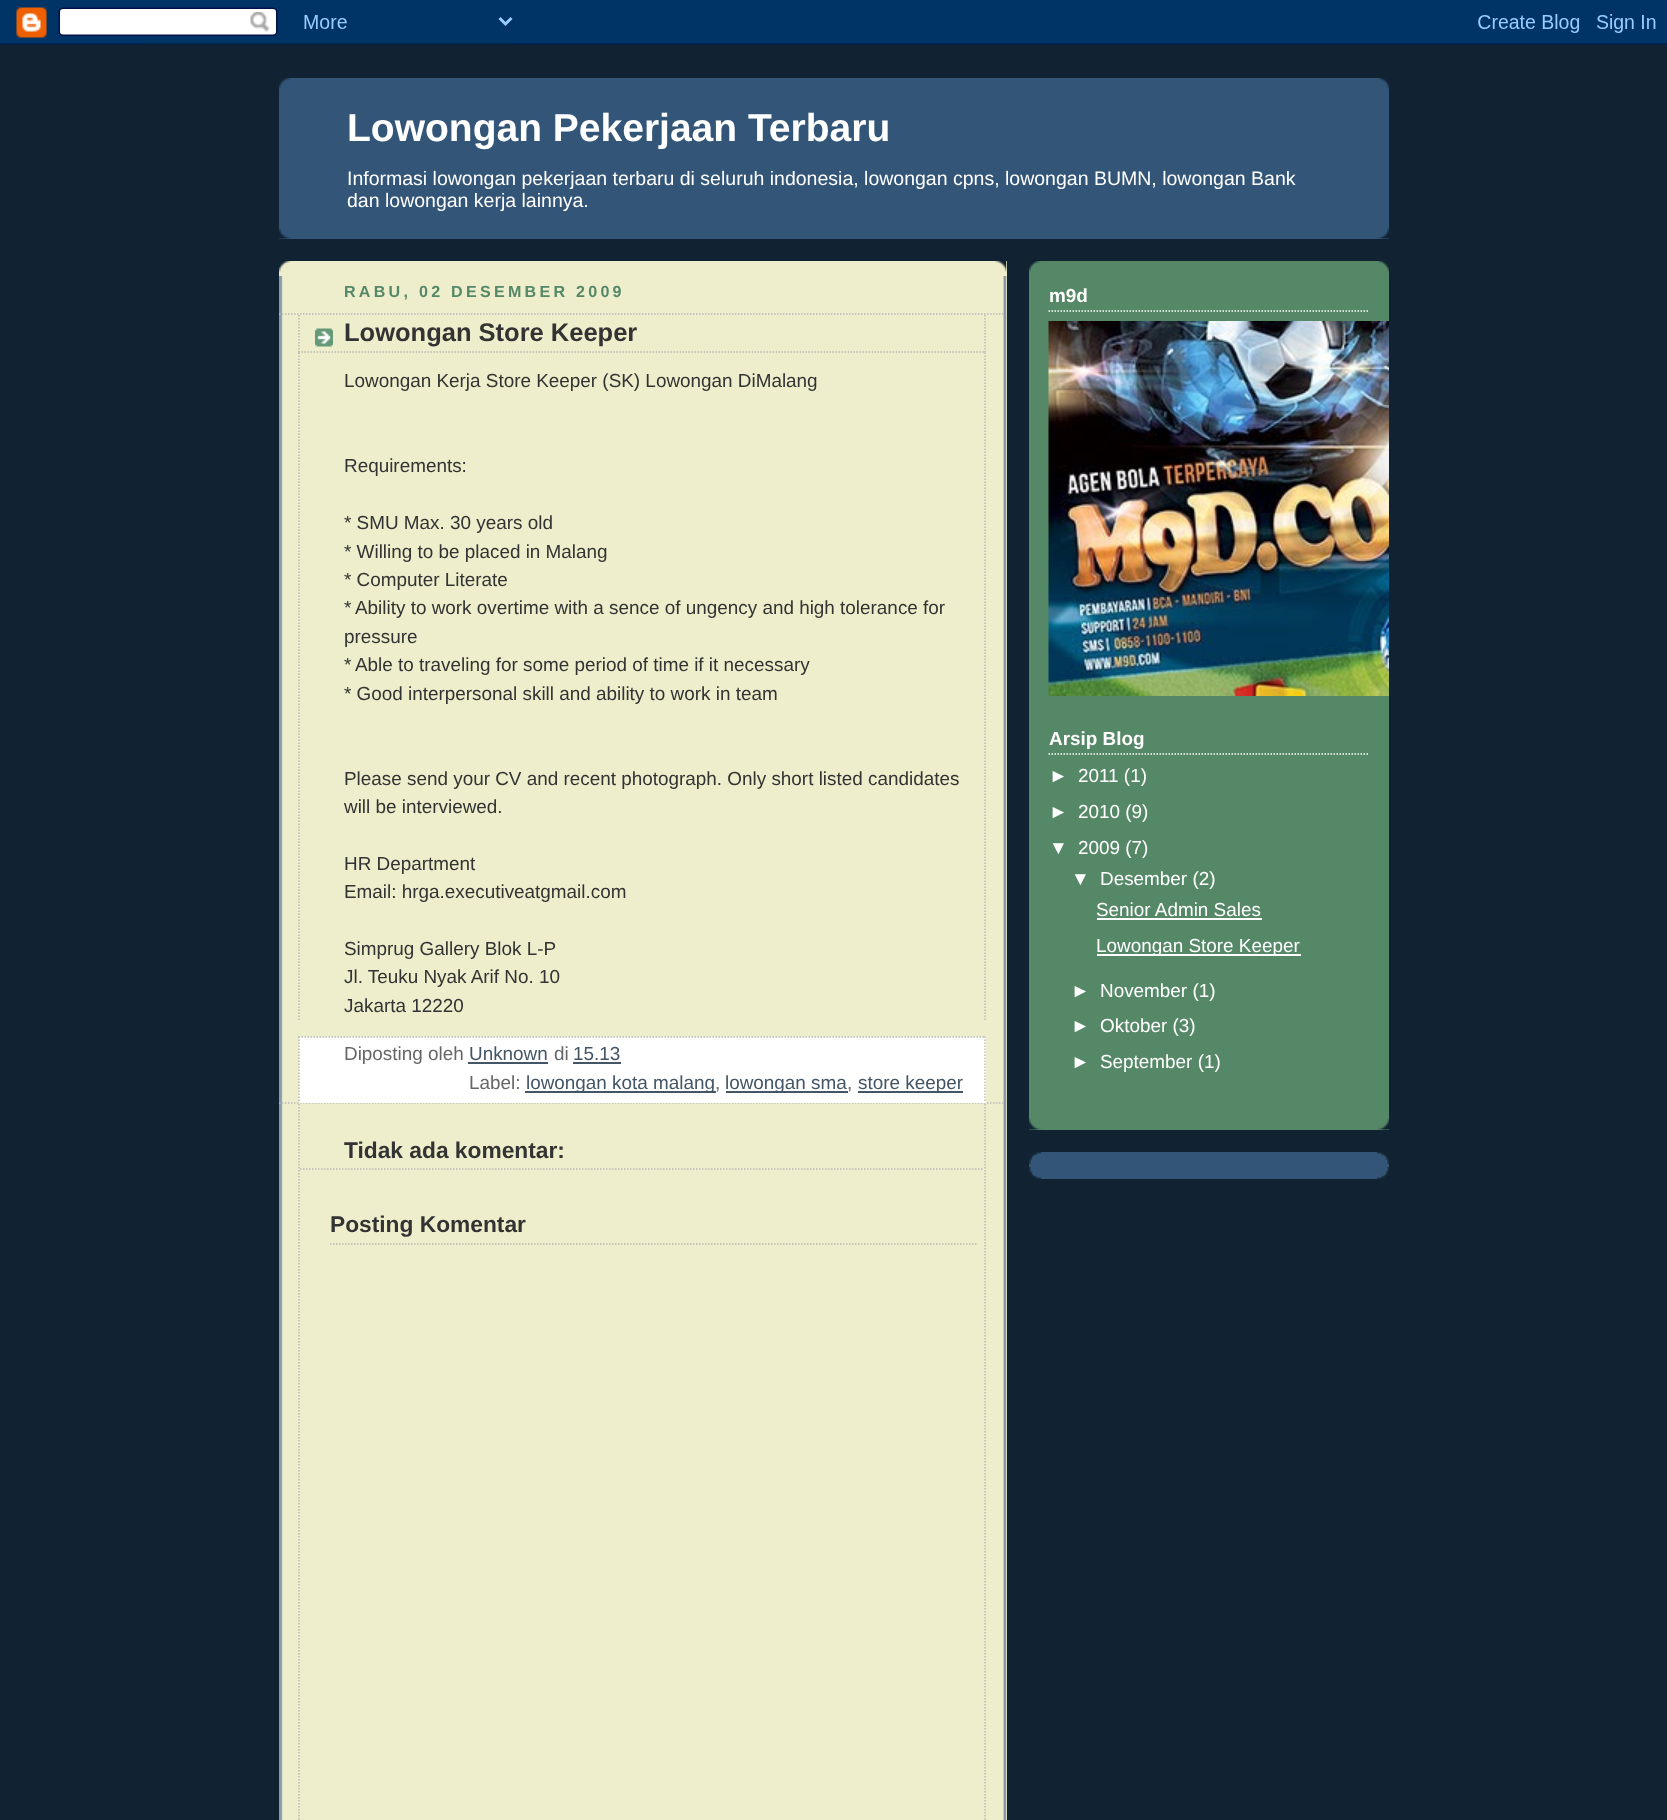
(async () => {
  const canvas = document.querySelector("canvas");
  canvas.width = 1667;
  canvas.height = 1820;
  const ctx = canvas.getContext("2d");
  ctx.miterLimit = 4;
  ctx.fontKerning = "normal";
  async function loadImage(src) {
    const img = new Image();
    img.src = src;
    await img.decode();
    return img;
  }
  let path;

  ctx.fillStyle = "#112233";
  ctx.fillRect(0, 0, 1667, 1820);
  ctx.drawImage(await loadImage("img/1.png"), 0, 0, 1667, 45);
  ctx.fillStyle = "#335577";
  ctx.fillRect(279, 78, 1110, 161);
  ctx.drawImage(await loadImage("img/2.png"), 279, 78, 1110, 11);
  ctx.drawImage(await loadImage("img/3.png"), 279, 227, 1110, 12);
  ctx.fillStyle = "#eeeecc";
  ctx.fillRect(279, 261, 728, 1559);
  ctx.drawImage(await loadImage("img/4.png"), 279, 261, 728, 12);
  ctx.drawImage(await loadImage("img/5.png"), 279, 276, 728, 1544);
  path = new Path2D("M279 314H1005");
  ctx.strokeStyle = "#bbbbbb";
  ctx.lineWidth = 1.5;
  ctx.setLineDash([1.5, 1.5]);
  ctx.stroke(path);
  path = new Path2D("M279 1103H1005");
  ctx.stroke(path);
  ctx.drawImage(await loadImage("img/6.png"), 315, 328, 18, 19);
  path = new Path2D("M985 315V352.5");
  ctx.stroke(path);
  path = new Path2D("M298.5 352H985.5");
  ctx.stroke(path);
  path = new Path2D("M299 315V352.5");
  ctx.stroke(path);
  path = new Path2D("M985 352.5V1021.5");
  ctx.stroke(path);
  path = new Path2D("M299 352.5V1021.5");
  ctx.stroke(path);
  ctx.fillStyle = "#ffffff";
  ctx.fillRect(299, 1037, 687, 66);
  path = new Path2D("M298.5 1037H985.5");
  ctx.stroke(path);
  path = new Path2D("M985 1036.5V1102.5");
  ctx.stroke(path);
  path = new Path2D("M299 1036.5V1102.5");
  ctx.stroke(path);
  for (const [x, y, w, h, color] of [
    [468, 1062, 80, 2, "#445566"],
    [573, 1062, 48, 2, "#445566"],
    [525, 1091, 191, 2, "#445566"],
    [726, 1091, 122, 2, "#445566"],
    [858, 1091, 105, 2, "#445566"],
  ]) {
    ctx.fillStyle = color;
    ctx.fillRect(x, y, w, h);
  }
  path = new Path2D("M985 1104V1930.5");
  ctx.stroke(path);
  path = new Path2D("M299 1104V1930.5");
  ctx.stroke(path);
  path = new Path2D("M300 1169H984");
  ctx.stroke(path);
  path = new Path2D("M330 1244H976.5");
  ctx.stroke(path);
  ctx.fillStyle = "#558866";
  ctx.fillRect(1029, 261, 360, 869);
  ctx.drawImage(await loadImage("img/7.png"), 1029, 1118, 360, 12);
  ctx.drawImage(await loadImage("img/8.png"), 1029, 261, 360, 12);
  path = new Path2D("M1048.5 311H1369.5");
  ctx.strokeStyle = "#ffffff";
  ctx.stroke(path);
  ctx.drawImage(await loadImage("img/9.png"), 1048, 321, 341, 375);
  path = new Path2D("M1048.5 754H1369.5");
  ctx.stroke(path);
  for (const [x, y, w, h, color] of [
    [1097, 918, 165, 2, "#ffffff"],
    [1097, 954, 204, 2, "#ffffff"],
    [1029, 1152, 360, 27, "#335577"],
  ]) {
    ctx.fillStyle = color;
    ctx.fillRect(x, y, w, h);
  }
  ctx.drawImage(await loadImage("img/10.png"), 1029, 1152, 360, 13);
  ctx.drawImage(await loadImage("img/11.png"), 1029, 1167, 360, 12);
  ctx.font = "bold 39px Liberation Sans";
  ctx.fillStyle = "#ffffff";
  ctx.fillText("Lowongan Pekerjaan Terbaru", 347, 141);
  ctx.font = "19.5px Liberation Sans";
  ctx.fillText("Informasi lowongan pekerjaan terbaru di seluruh indonesia, lowongan cpns, lowongan BUMN, lowongan Bank", 347, 185);
  ctx.fillText("dan lowongan kerja lainnya.", 347, 207);
  ctx.letterSpacing = "3.25px";
  ctx.font = "bold 16.1px Liberation Sans";
  ctx.fillStyle = "#558866";
  ctx.fillText("RABU, 02 DESEMBER 2009", 344, 297);
  ctx.letterSpacing = "0px";
  ctx.font = "bold 25.5px Liberation Sans";
  ctx.fillStyle = "#333333";
  ctx.fillText("Lowongan Store Keeper", 344, 341);
  ctx.font = "18.9px Liberation Sans";
  for (const [text, x, y] of [
    ["Lowongan Kerja Store Keeper (SK) Lowongan DiMalang", 344, 387],
    ["Requirements:", 344, 472],
    ["* SMU Max. 30 years old", 344, 529],
    ["* Willing to be placed in Malang", 344, 558],
    ["* Computer Literate", 344, 586],
    ["*", 344, 614],
    ["Ability to work overtime with a sence of ungency and high tolerance for", 355, 614],
    ["pressure", 344, 643],
    ["*", 344, 671],
    ["Able to traveling for some period of time if it necessary", 355, 671],
    ["* Good interpersonal skill and ability to work in team", 344, 700],
    ["Please send your CV and recent photograph. Only short listed candidates", 344, 785],
    ["will be interviewed.", 344, 813],
    ["HR Department", 344, 870],
    ["Email: hrga.executiveatgmail.com", 344, 898],
    ["Simprug Gallery Blok L-P", 344, 955],
    ["Jl. Teuku Nyak Arif No. 10", 344, 983],
    ["Jakarta 12220", 344, 1012],
  ]) {
    ctx.fillText(text, x, y);
  }
  ctx.fillStyle = "#666666";
  ctx.fillText("Diposting oleh", 344, 1060);
  ctx.fillStyle = "#445566";
  ctx.fillText("Unknown", 469, 1060);
  ctx.fillStyle = "#666666";
  ctx.fillText("di", 554, 1060);
  ctx.fillStyle = "#445566";
  ctx.fillText("15.13", 573, 1060);
  ctx.fillStyle = "#666666";
  ctx.fillText("Label:", 469, 1089);
  ctx.fillStyle = "#445566";
  ctx.fillText("lowongan kota malang", 526, 1089);
  ctx.fillStyle = "#666666";
  ctx.fillText(",", 715, 1089);
  ctx.fillStyle = "#445566";
  ctx.fillText("lowongan sma", 725, 1089);
  ctx.fillStyle = "#666666";
  ctx.fillText(",", 847, 1089);
  ctx.fillStyle = "#445566";
  ctx.fillText("store keeper", 858, 1089);
  ctx.font = "bold 22.75px Liberation Sans";
  ctx.fillStyle = "#333333";
  ctx.fillText("Tidak ada komentar:", 344, 1158);
  ctx.fillText("Posting Komentar", 330, 1232);
  ctx.font = "bold 18.9px Liberation Sans";
  ctx.fillStyle = "#ffffff";
  ctx.fillText("m9d", 1049, 302);
  ctx.fillText("Arsip Blog", 1049, 745);
  ctx.font = "18.9px Liberation Sans";
  for (const [text, x, y] of [
    ["►", 1049, 782],
    ["2011 (1)", 1078, 782],
    ["►", 1049, 818],
    ["2010 (9)", 1078, 818],
    ["▼", 1049, 854],
    ["2009 (7)", 1078, 854],
    ["▼", 1071, 885],
    ["Desember (2)", 1100, 885],
    ["Senior Admin Sales", 1096, 916],
    ["Lowongan Store Keeper", 1096, 952],
    ["►", 1071, 997],
    ["November (1)", 1100, 997],
    ["►", 1071, 1032],
    ["Oktober (3)", 1100, 1032],
    ["►", 1071, 1068],
    ["September (1)", 1100, 1068],
  ]) {
    ctx.fillText(text, x, y);
  }
})();
